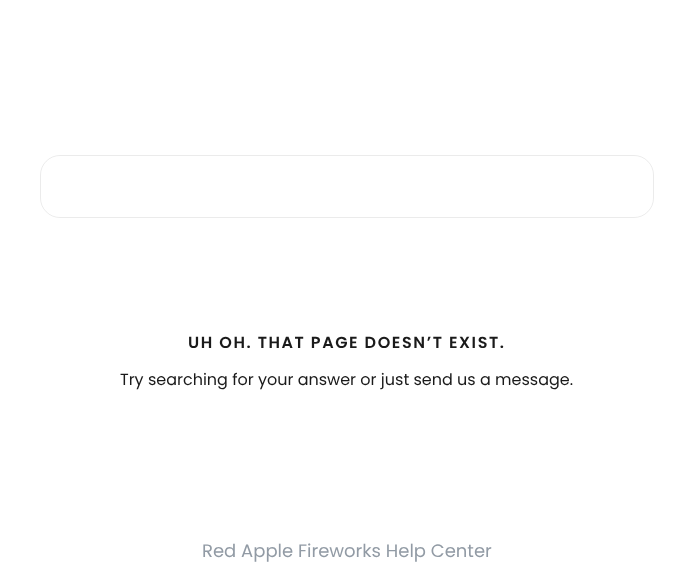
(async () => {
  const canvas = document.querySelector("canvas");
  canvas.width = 694;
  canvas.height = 574;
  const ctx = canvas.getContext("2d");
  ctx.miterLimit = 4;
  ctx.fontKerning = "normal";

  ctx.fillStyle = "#ffffff";
  ctx.fillRect(0, 0, 694, 574);
  ctx.beginPath();
  ctx.roundRect(40.5, 155.5, 613, 62, 19.5);
  ctx.strokeStyle = "rgba(0, 0, 0, 0.08)";
  ctx.stroke();
  ctx.letterSpacing = "1.6px";
  ctx.font = "600 16px Poppins";
  ctx.fillStyle = "#1a1a1a";
  ctx.fillText("UH OH. THAT PAGE DOESN’T EXIST.", 188, 348);
  ctx.letterSpacing = "0px";
  ctx.font = "16px Poppins";
  ctx.fillText("Try searching for your answer or just send us a message.", 120, 385);
  ctx.font = "18px Poppins";
  ctx.fillStyle = "#929ba5";
  ctx.fillText("Red Apple Fireworks Help Center", 202, 557);
})();
